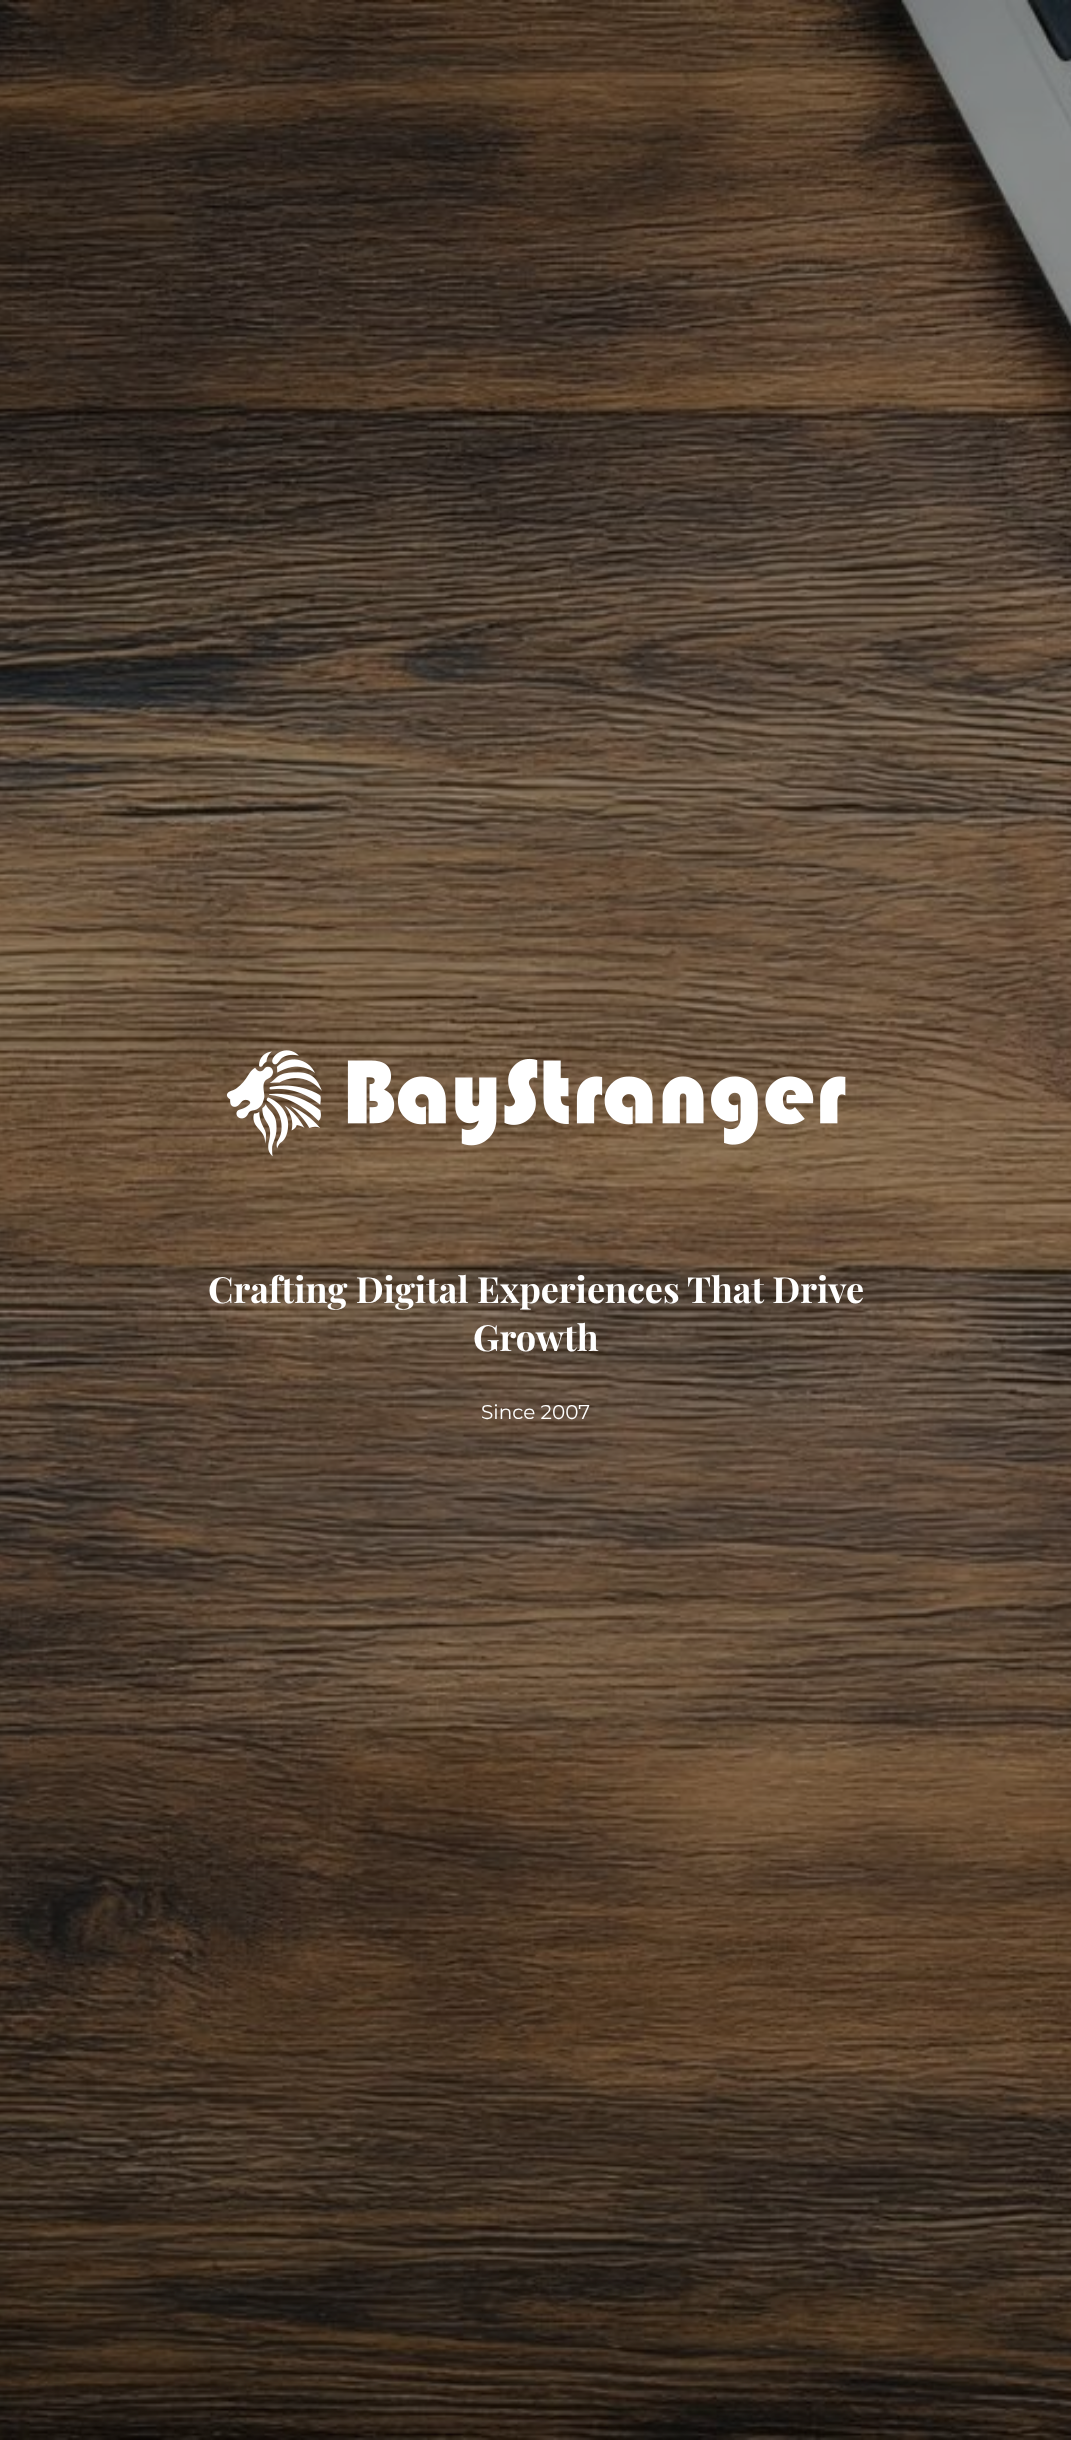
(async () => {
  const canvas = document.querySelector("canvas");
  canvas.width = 1071;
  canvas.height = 2440;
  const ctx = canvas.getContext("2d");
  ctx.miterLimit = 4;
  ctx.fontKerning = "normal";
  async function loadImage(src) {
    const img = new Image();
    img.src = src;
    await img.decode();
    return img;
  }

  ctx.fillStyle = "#ffffff";
  ctx.fillRect(0, 0, 1071, 2440);
  ctx.drawImage(await loadImage("img/1.png"), 0, 0, 1071, 2440);
  ctx.drawImage(await loadImage("img/2.png"), 226, 1050, 620, 107);
  ctx.font = "bold 36px Playfair Display";
  ctx.fillText("Crafting Digital Experiences That Drive", 208, 1303);
  ctx.fillText("Growth", 473, 1351);
  ctx.font = "20px Montserrat";
  ctx.fillText("Since 2007", 481, 1419);
})();
